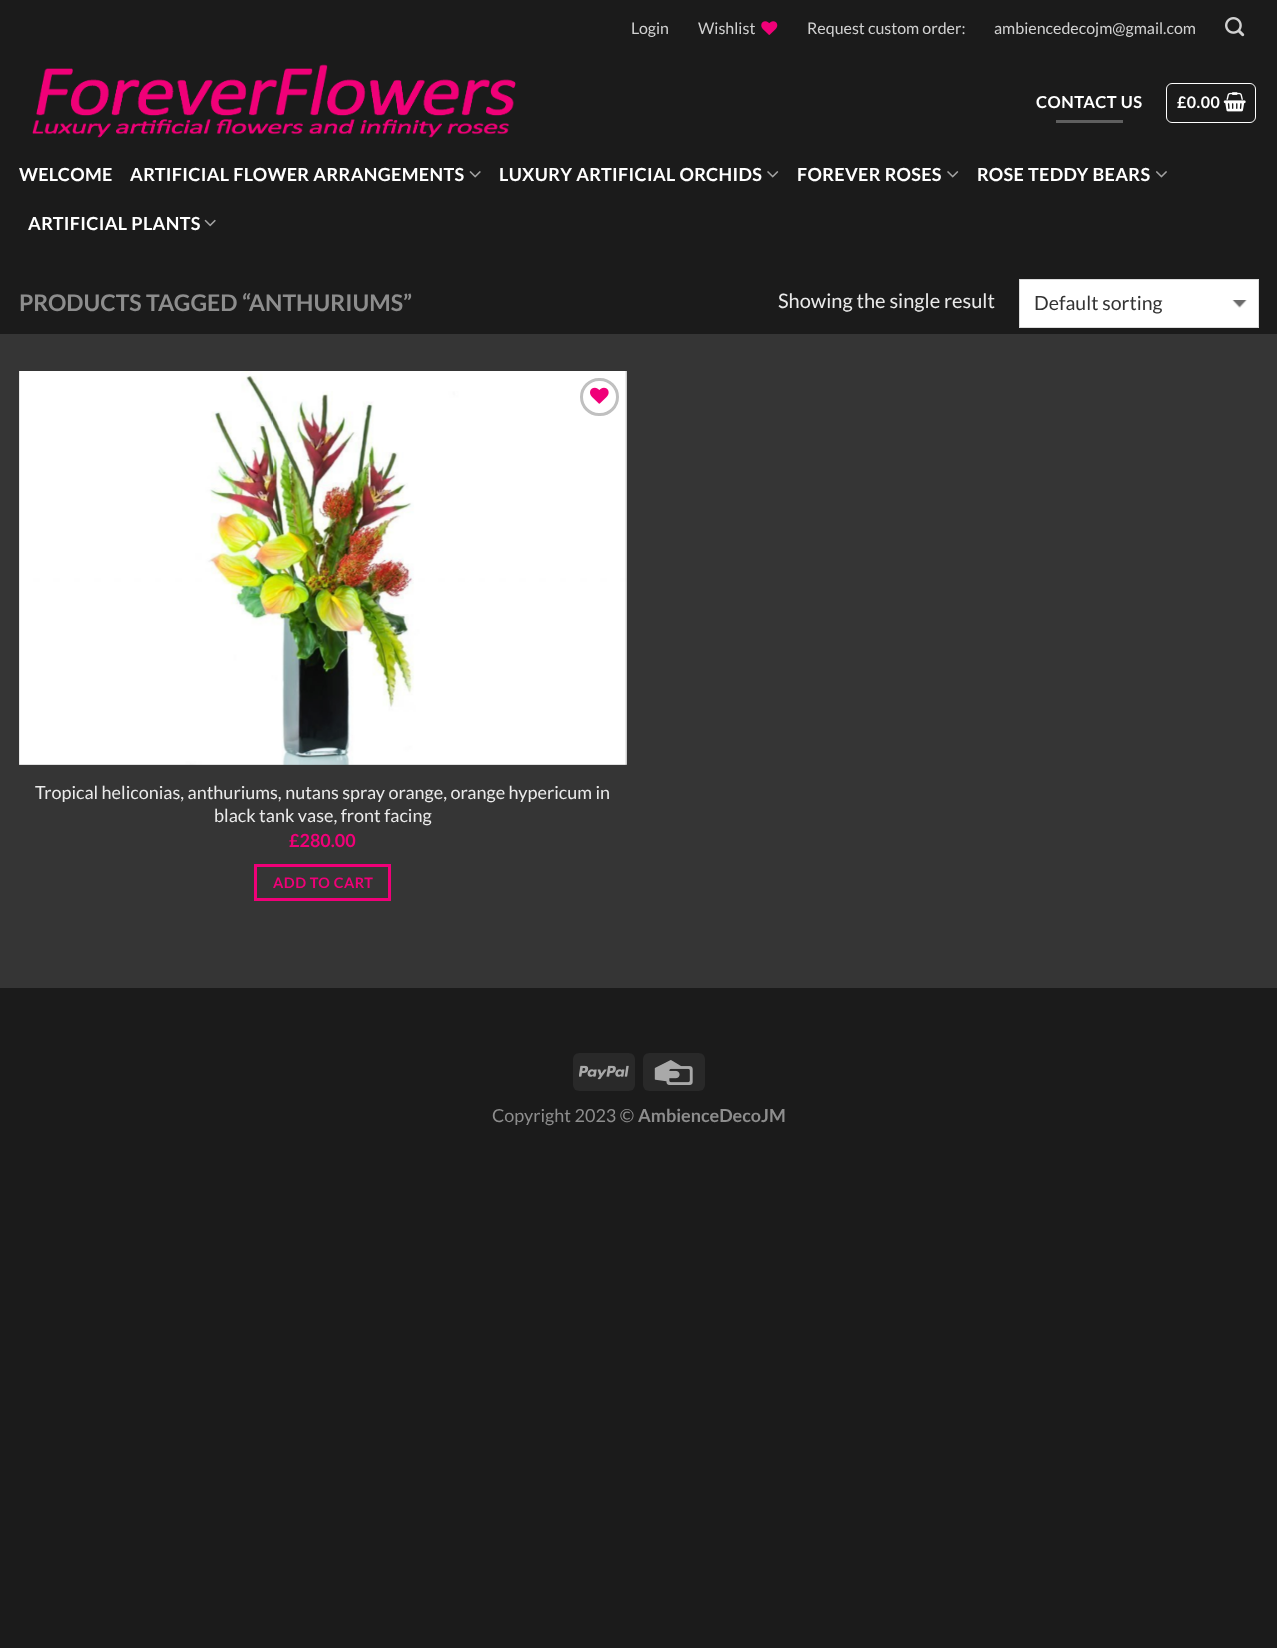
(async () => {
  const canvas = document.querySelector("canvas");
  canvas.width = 1277;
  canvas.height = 1648;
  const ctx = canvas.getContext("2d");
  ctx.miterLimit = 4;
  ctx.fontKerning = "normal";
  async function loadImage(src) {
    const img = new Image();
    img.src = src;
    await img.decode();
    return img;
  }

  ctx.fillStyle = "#1b1b1b";
  ctx.fillRect(0, 0, 1277, 1648);
  ctx.fillStyle = "#353535";
  ctx.fillRect(0, 334, 1277, 654);
  ctx.drawImage(await loadImage("img/1.png"), 761, 21, 17, 14);
  ctx.drawImage(await loadImage("img/2.png"), 1225, 17, 20, 20);
  ctx.drawImage(await loadImage("img/3.png"), 32, 64, 484, 74);
  ctx.fillStyle = "#5f5f5f";
  ctx.fillRect(1056, 120, 67, 3);
  ctx.beginPath();
  ctx.roundRect(1166.5, 83.5, 89, 39, 5.5);
  ctx.strokeStyle = "#ffffff";
  ctx.stroke();
  ctx.drawImage(await loadImage("img/4.png"), 1223, 92, 23, 20);
  ctx.drawImage(await loadImage("img/5.png"), 469, 171, 12, 7);
  ctx.drawImage(await loadImage("img/6.png"), 767, 171, 12, 7);
  ctx.drawImage(await loadImage("img/6.png"), 947, 171, 12, 7);
  ctx.drawImage(await loadImage("img/7.png"), 1156, 171, 11, 7);
  ctx.drawImage(await loadImage("img/8.png"), 204, 219, 12, 8);
  ctx.fillStyle = "#ffffff";
  ctx.fillRect(1020, 280, 238, 47);
  ctx.drawImage(await loadImage("img/9.png"), 1232, 300, 15, 8);
  ctx.strokeStyle = "#dddddd";
  ctx.strokeRect(1019.5, 279.5, 239, 48);
  ctx.drawImage(await loadImage("img/10.png"), 19, 371, 608, 394);
  ctx.drawImage(await loadImage("img/11.png"), 19, 371, 607, 394);
  ctx.beginPath();
  ctx.roundRect(581.5, 379.5, 36, 35, 17.5);
  ctx.strokeStyle = "#c0c0c0";
  ctx.lineWidth = 3;
  ctx.stroke();
  ctx.drawImage(await loadImage("img/12.png"), 590, 387, 19, 17);
  ctx.strokeStyle = "#f00078";
  ctx.strokeRect(255.5, 865.5, 134, 34);
  ctx.fillStyle = "#292929";
  ctx.beginPath();
  ctx.roundRect(573, 1053, 62, 38, 6);
  ctx.fill();
  ctx.drawImage(await loadImage("img/13.png"), 579, 1065, 50, 15);
  ctx.beginPath();
  ctx.roundRect(643, 1053, 62, 38, 6);
  ctx.fill();
  ctx.drawImage(await loadImage("img/14.png"), 654, 1060, 39, 25);
  ctx.font = "16px Lato";
  ctx.fillStyle = "#d1d1d1";
  for (const [text, x, y] of [
    ["Login", 631, 34],
    ["Wishlist", 698, 34],
    ["Request custom order:", 807, 34],
    ["ambiencedecojm@gmail.com", 994, 34],
  ]) {
    ctx.fillText(text, x, y);
  }
  ctx.letterSpacing = "0.5px";
  ctx.font = "bold 16.5px Lato";
  ctx.fillStyle = "#ffffff";
  ctx.fillText("CONTACT US", 1036, 108);
  ctx.font = "bold 16px Lato";
  ctx.fillText("£0.00", 1177, 108);
  ctx.letterSpacing = "0.35px";
  ctx.font = "bold 18px Lato";
  for (const [text, x, y] of [
    ["WELCOME", 19, 181],
    ["ARTIFICIAL FLOWER ARRANGEMENTS", 130, 181],
    ["LUXURY ARTIFICIAL ORCHIDS", 499, 181],
    ["FOREVER ROSES", 797, 181],
    ["ROSE TEDDY BEARS", 977, 181],
    ["ARTIFICIAL PLANTS", 28, 230],
  ]) {
    ctx.fillText(text, x, y);
  }
  ctx.letterSpacing = "0px";
  ctx.font = "bold 23px Lato";
  ctx.fillStyle = "#8d8d8d";
  ctx.fillText("PRODUCTS TAGGED “ANTHURIUMS”", 19, 311);
  ctx.font = "20px Lato";
  ctx.fillStyle = "#eaeaea";
  ctx.fillText("Showing the single result", 778, 308);
  ctx.font = "19.5px Lato";
  ctx.fillStyle = "#333333";
  ctx.fillText("Default sorting", 1034, 310);
  ctx.font = "18px Lato";
  ctx.fillStyle = "#eaeaea";
  ctx.fillText("Tropical heliconias, anthuriums, nutans spray orange, orange hypericum in", 35, 799);
  ctx.fillText("black tank vase, front facing", 214, 822);
  ctx.font = "bold 18px Lato";
  ctx.fillStyle = "#f00078";
  ctx.fillText("£280.00", 289, 847);
  ctx.letterSpacing = "0.5px";
  ctx.font = "bold 14.5px Lato";
  ctx.fillText("ADD TO CART", 273, 888);
  ctx.letterSpacing = "0px";
  ctx.font = "18px Lato";
  ctx.fillStyle = "#8d8d8d";
  ctx.fillText("Copyright 2023 ©", 492, 1122);
  ctx.font = "bold 18px Lato";
  ctx.fillText("AmbienceDecoJM", 638, 1122);
})();
